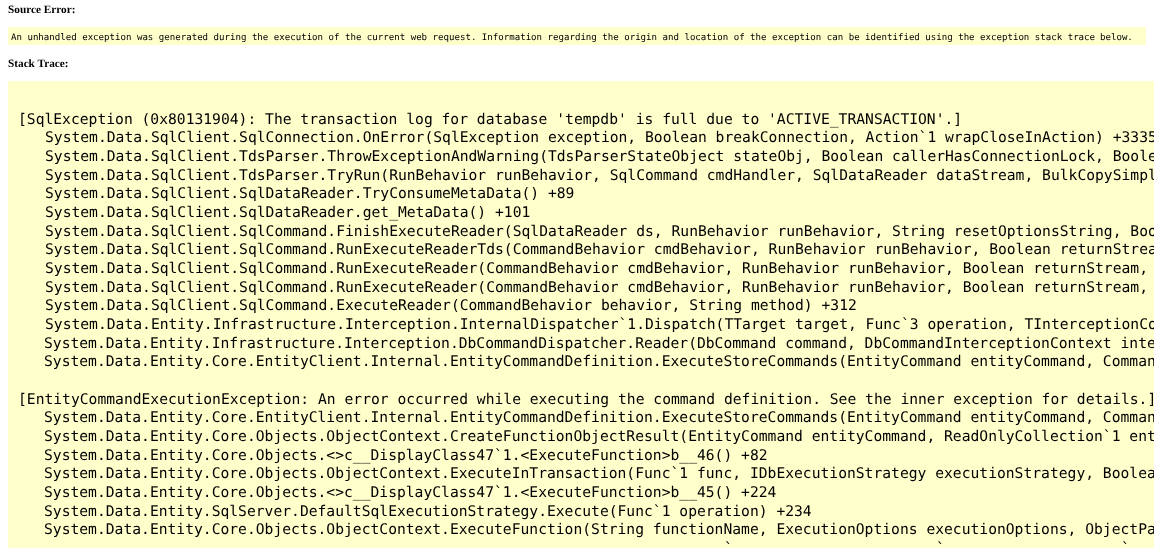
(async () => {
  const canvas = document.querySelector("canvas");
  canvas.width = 1154;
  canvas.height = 548;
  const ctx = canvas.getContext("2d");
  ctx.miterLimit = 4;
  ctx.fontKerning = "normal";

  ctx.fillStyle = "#ffffff";
  ctx.fillRect(0, 0, 1154, 548);
  ctx.fillStyle = "#ffffcc";
  ctx.fillRect(8, 27, 1138, 18);
  ctx.fillRect(8, 81, 1146, 467);
  ctx.font = "bold 11.25px Liberation Serif";
  ctx.fillStyle = "#000000";
  ctx.fillText("Source Error:", 8, 13);
  ctx.font = "9.1px DejaVu Sans Mono";
  ctx.fillText("An unhandled exception was generated during the execution of the current web request. Information regarding the origin and location of the exception can be identified using the exception stack trace", 11, 40);
  ctx.fillText("below.", 1100, 40);
  ctx.font = "bold 11.25px Liberation Serif";
  ctx.fillText("Stack Trace:", 8, 67);
  ctx.font = "14.67px DejaVu Sans Mono";
  for (const [text, x, y] of [
    ["[SqlException (0x80131904): The transaction log for database 'tempdb' is full due to 'ACTIVE_TRANSACTION'.]", 18, 124],
    ["System.Data.SqlClient.SqlConnection.OnError(SqlException exception, Boolean breakConnection, Action`1 wrapCloseInAction) +3335", 45, 142],
    ["System.Data.SqlClient.TdsParser.ThrowExceptionAndWarning(TdsParserStateObject stateObj, Boolean callerHasConnectionLock, Boole", 45, 161],
    ["System.Data.SqlClient.TdsParser.TryRun(RunBehavior runBehavior, SqlCommand cmdHandler, SqlDataReader dataStream, BulkCopySimpl", 45, 180],
    ["System.Data.SqlClient.SqlDataReader.TryConsumeMetaData() +89", 45, 198],
    ["System.Data.SqlClient.SqlDataReader.get_MetaData() +101", 45, 217],
    ["System.Data.SqlClient.SqlCommand.FinishExecuteReader(SqlDataReader ds, RunBehavior runBehavior, String resetOptionsString, Boo", 45, 236],
    ["System.Data.SqlClient.SqlCommand.RunExecuteReaderTds(CommandBehavior cmdBehavior, RunBehavior runBehavior, Boolean returnStrea", 45, 254],
    ["System.Data.SqlClient.SqlCommand.RunExecuteReader(CommandBehavior cmdBehavior, RunBehavior runBehavior, Boolean returnStream,", 45, 273],
    ["System.Data.SqlClient.SqlCommand.RunExecuteReader(CommandBehavior cmdBehavior, RunBehavior runBehavior, Boolean returnStream,", 45, 292],
    ["System.Data.SqlClient.SqlCommand.ExecuteReader(CommandBehavior behavior, String method) +312", 45, 310],
    ["System.Data.Entity.Infrastructure.Interception.InternalDispatcher`1.Dispatch(TTarget target, Func`3 operation, TInterceptionCo", 45, 329],
    ["System.Data.Entity.Infrastructure.Interception.DbCommandDispatcher.Reader(DbCommand command, DbCommandInterceptionContext inte", 44, 348],
    ["System.Data.Entity.Core.EntityClient.Internal.EntityCommandDefinition.ExecuteStoreCommands(EntityCommand entityCommand, Comman", 44, 366],
    ["[EntityCommandExecutionException: An error occurred while executing the command definition. See the inner exception for details.]", 18, 404],
    ["System.Data.Entity.Core.EntityClient.Internal.EntityCommandDefinition.ExecuteStoreCommands(EntityCommand entityCommand, Comman", 44, 422],
    ["System.Data.Entity.Core.Objects.ObjectContext.CreateFunctionObjectResult(EntityCommand entityCommand, ReadOnlyCollection`1 ent", 44, 441],
    ["System.Data.Entity.Core.Objects.<>c__DisplayClass47`1.<ExecuteFunction>b__46() +82", 44, 460],
    ["System.Data.Entity.Core.Objects.ObjectContext.ExecuteInTransaction(Func`1 func, IDbExecutionStrategy executionStrategy, Boolea", 44, 478],
    ["System.Data.Entity.Core.Objects.<>c__DisplayClass47`1.<ExecuteFunction>b__45() +224", 44, 497],
    ["System.Data.Entity.SqlServer.DefaultSqlExecutionStrategy.Execute(Func`1 operation) +234", 44, 516],
    ["System.Data.Entity.Core.Objects.ObjectContext.ExecuteFunction(String functionName, ExecutionOptions executionOptions, ObjectPa", 44, 534],
    ["`", 724, 553],
    ["`", 936, 553],
    ["`", 1121, 553],
  ]) {
    ctx.fillText(text, x, y);
  }
})();
